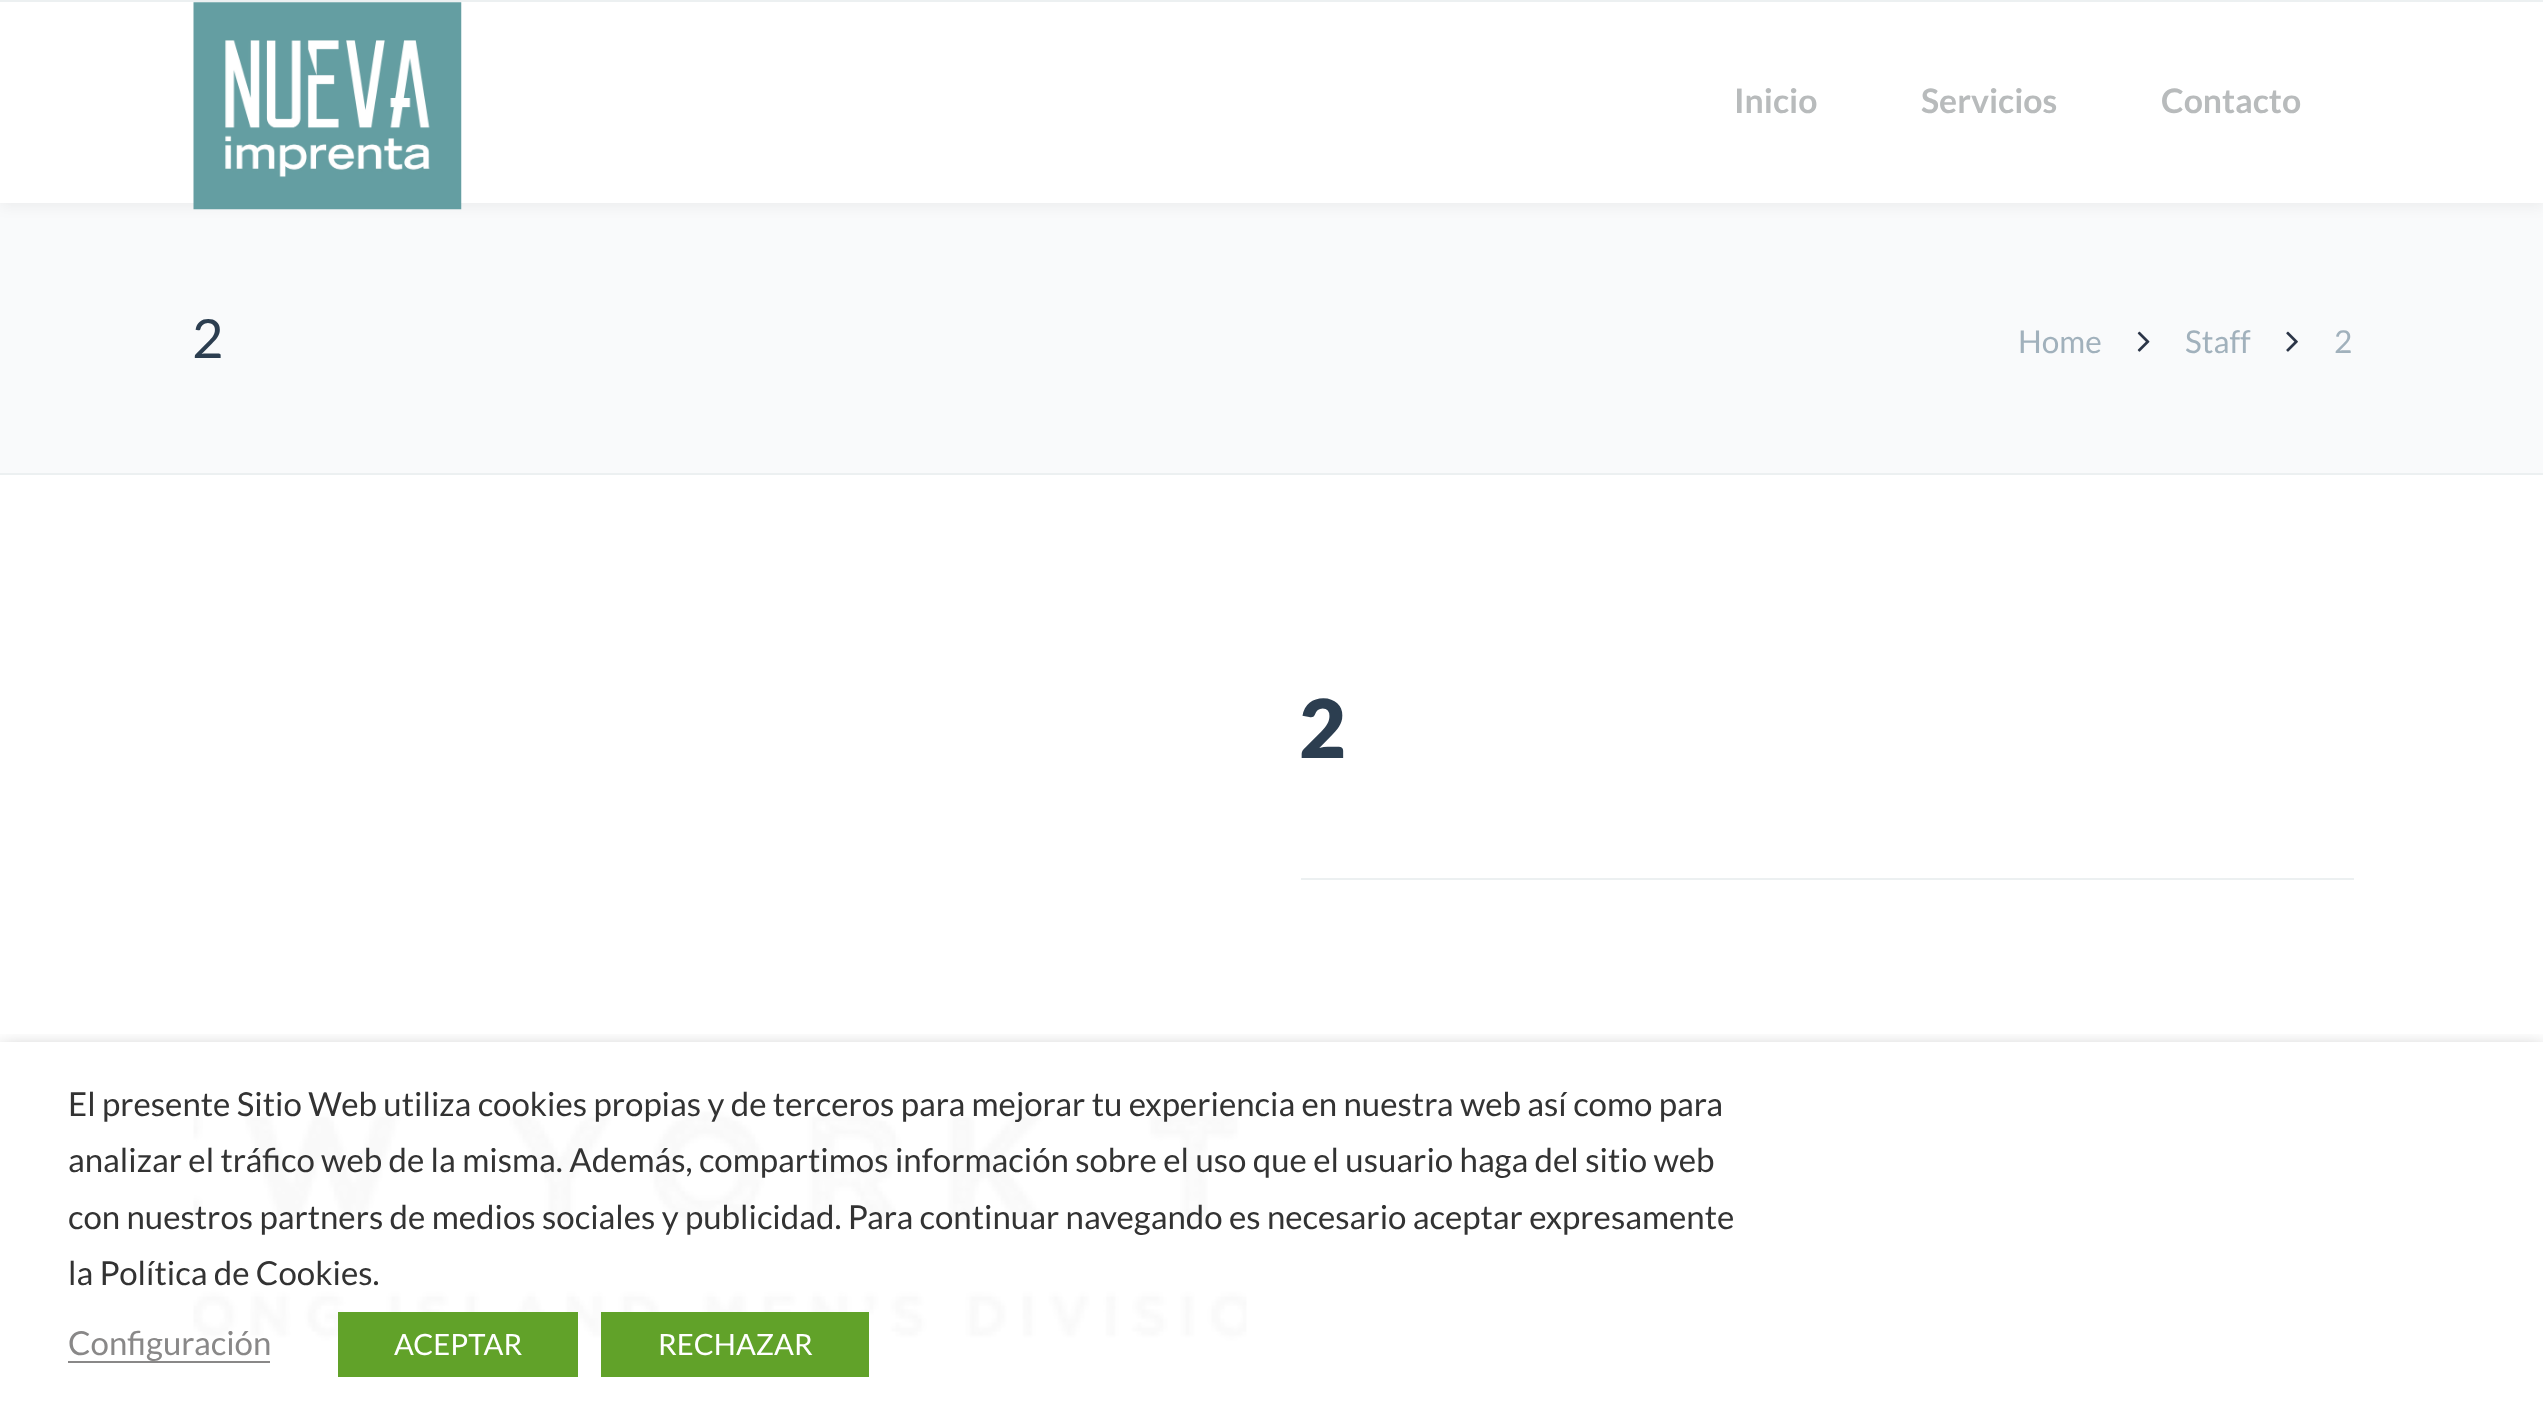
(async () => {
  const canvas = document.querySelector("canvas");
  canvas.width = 2543;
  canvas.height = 1421;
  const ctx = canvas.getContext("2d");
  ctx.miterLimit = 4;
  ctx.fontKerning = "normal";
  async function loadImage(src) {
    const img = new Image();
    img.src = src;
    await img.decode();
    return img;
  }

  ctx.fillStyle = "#ffffff";
  ctx.fillRect(0, 0, 2543, 1421);
  ctx.fillStyle = "#f9fafb";
  ctx.fillRect(0, 203, 2543, 270);
  ctx.fillStyle = "rgba(0, 0, 0, 0.05)";
  ctx.filter = "blur(7px)";
  ctx.beginPath();
  ctx.rect(0, 5, 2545, 202);
  ctx.fill();
  ctx.filter = "none";
  ctx.fillStyle = "#ffffff";
  ctx.fillRect(0, 2, 2543, 201);
  ctx.fillStyle = "#ecf0f1";
  ctx.fillRect(0, 0, 2543, 2);
  ctx.drawImage(await loadImage("img/1.png"), 193, 2, 269, 208);
  ctx.fillRect(0, 473, 2543, 2);
  ctx.drawImage(await loadImage("img/2.png"), 2137, 331, 13, 21);
  ctx.drawImage(await loadImage("img/3.png"), 2286, 331, 12, 21);
  ctx.fillRect(1301, 878, 1053, 2);
  ctx.drawImage(await loadImage("img/4.png"), 193, 1111, 1054, 231);
  ctx.save();
  ctx.beginPath();
  ctx.rect(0, 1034, 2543, 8);
  ctx.clip();
  ctx.fillStyle = "rgba(0, 0, 0, 0.5)";
  ctx.filter = "blur(11px)";
  ctx.beginPath();
  ctx.rect(0, 1053, 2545, 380);
  ctx.fill();
  ctx.filter = "none";
  ctx.restore();
  for (const [x, y, w, h, color] of [
    [68, 1361, 202, 2, "#898888"],
    [338, 1312, 240, 65, "#61a229"],
    [601, 1312, 268, 65, "#61a229"],
  ]) {
    ctx.fillStyle = color;
    ctx.fillRect(x, y, w, h);
  }
  ctx.font = "bold 33.75px Lato";
  ctx.fillStyle = "#b8bbbc";
  for (const [text, x, y] of [
    ["Inicio", 1734, 113],
    ["Servicios", 1921, 113],
    ["Contacto", 2161, 113],
  ]) {
    ctx.fillText(text, x, y);
  }
  ctx.font = "54px Lato";
  ctx.fillStyle = "#2c3e50";
  ctx.fillText("2", 192, 358);
  ctx.font = "31.5px Lato";
  ctx.fillStyle = "#a1b1bc";
  for (const [text, x, y] of [
    ["Home", 2018, 353],
    ["Staff", 2185, 353],
    ["2", 2334, 353],
  ]) {
    ctx.fillText(text, x, y);
  }
  ctx.font = "900 81px Lato";
  ctx.fillStyle = "#2c3e50";
  ctx.fillText("2", 1299, 758);
  ctx.font = "33px Lato";
  ctx.fillStyle = "#333333";
  for (const [text, x, y] of [
    ["El presente Sitio Web utiliza cookies propias y de terceros para mejorar tu experiencia en nuestra web así como para", 68, 1116],
    ["analizar el tráfico web de la misma. Además, compartimos información sobre el uso que el usuario haga del sitio web", 68, 1172],
    ["con nuestros partners de medios sociales y publicidad. Para continuar navegando es necesario aceptar expresamente", 68, 1229],
    ["la Política de Cookies.", 68, 1285],
  ]) {
    ctx.fillText(text, x, y);
  }
  ctx.fillStyle = "#898888";
  ctx.fillText("Configuración", 68, 1355);
  ctx.font = "29.25px Lato";
  ctx.fillStyle = "#ffffff";
  ctx.fillText("ACEPTAR", 394, 1355);
  ctx.fillText("RECHAZAR", 658, 1355);
})();
